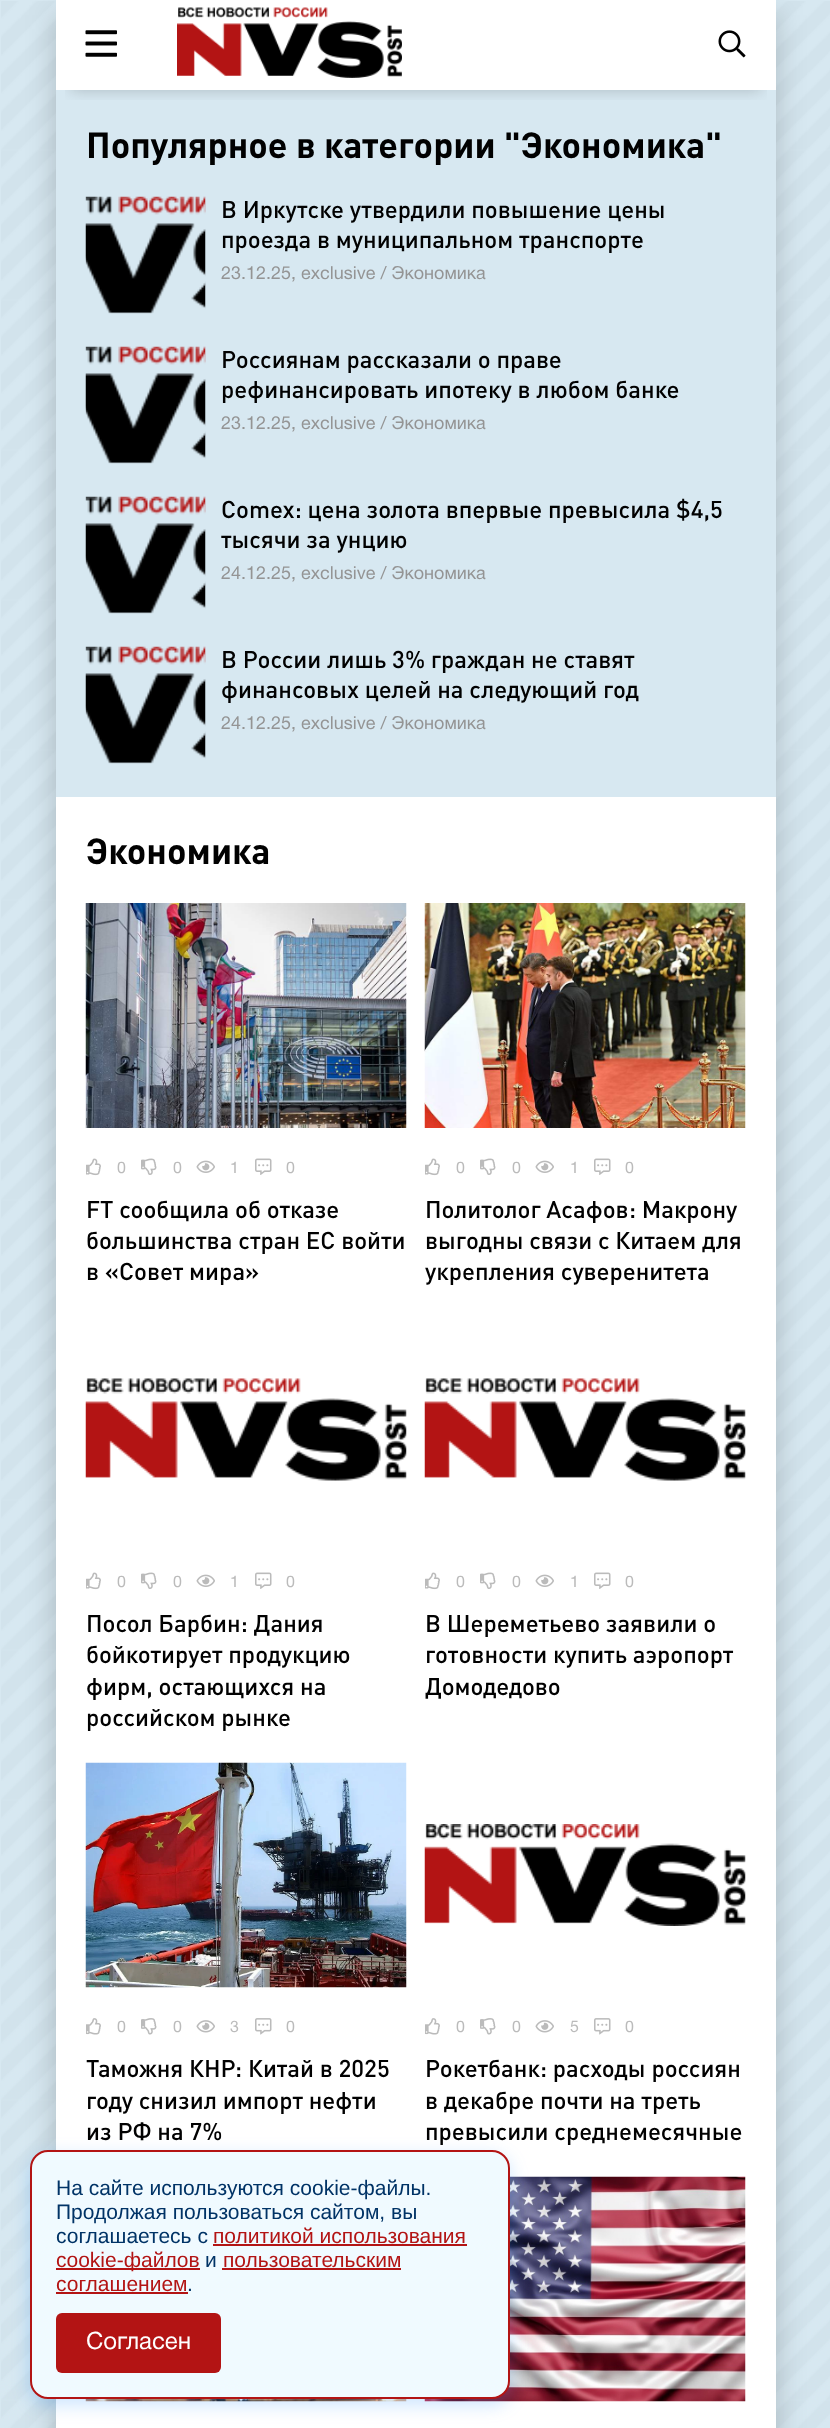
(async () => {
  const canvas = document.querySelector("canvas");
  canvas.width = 830;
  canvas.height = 2428;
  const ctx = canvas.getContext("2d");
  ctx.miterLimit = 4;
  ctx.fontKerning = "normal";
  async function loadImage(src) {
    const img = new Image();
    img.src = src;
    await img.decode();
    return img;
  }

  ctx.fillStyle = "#d7e8f1";
  ctx.fillRect(0, 0, 830, 2428);
  ctx.drawImage(await loadImage("img/1.png"), 1, 1, 829, 2427);
  ctx.fillStyle = "rgba(0, 0, 0, 0.2)";
  ctx.filter = "blur(15px)";
  ctx.beginPath();
  ctx.rect(56, 15, 720, 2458);
  ctx.fill();
  ctx.filter = "none";
  ctx.fillStyle = "#ffffff";
  ctx.fillRect(56, 0, 720, 2428);
  ctx.fillStyle = "#d7e8f1";
  ctx.fillRect(56, 90, 720, 707);
  ctx.save();
  ctx.beginPath();
  ctx.rect(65, 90, 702, 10);
  ctx.clip();
  ctx.fillStyle = "rgba(0, 0, 0, 0.2)";
  ctx.filter = "blur(7.5px)";
  ctx.beginPath();
  ctx.rect(71, 30, 690, 60);
  ctx.fill();
  ctx.filter = "none";
  ctx.restore();
  ctx.drawImage(await loadImage("img/2.png"), 85, 30, 32, 27);
  ctx.drawImage(await loadImage("img/3.png"), 177, 7, 225, 71);
  ctx.drawImage(await loadImage("img/4.png"), 718, 30, 28, 28);
  ctx.drawImage(await loadImage("img/5.png"), 85, 196, 121, 118);
  ctx.drawImage(await loadImage("img/5.png"), 85, 346, 121, 118);
  ctx.drawImage(await loadImage("img/5.png"), 85, 496, 121, 118);
  ctx.drawImage(await loadImage("img/5.png"), 85, 646, 121, 118);
  ctx.drawImage(await loadImage("img/6.png"), 85, 903, 322, 225);
  ctx.drawImage(await loadImage("img/7.png"), 86, 1158, 15, 18);
  ctx.drawImage(await loadImage("img/8.png"), 141, 1158, 16, 17);
  ctx.drawImage(await loadImage("img/9.png"), 196, 1160, 19, 13);
  ctx.drawImage(await loadImage("img/10.png"), 255, 1158, 17, 17);
  ctx.drawImage(await loadImage("img/11.png"), 424, 903, 322, 225);
  ctx.drawImage(await loadImage("img/7.png"), 425, 1158, 15, 18);
  ctx.drawImage(await loadImage("img/8.png"), 480, 1158, 16, 17);
  ctx.drawImage(await loadImage("img/9.png"), 535, 1160, 19, 13);
  ctx.drawImage(await loadImage("img/10.png"), 594, 1158, 17, 17);
  ctx.drawImage(await loadImage("img/12.png"), 85, 1378, 322, 103);
  ctx.drawImage(await loadImage("img/7.png"), 86, 1572, 15, 18);
  ctx.drawImage(await loadImage("img/8.png"), 141, 1572, 16, 17);
  ctx.drawImage(await loadImage("img/9.png"), 196, 1574, 19, 13);
  ctx.drawImage(await loadImage("img/10.png"), 255, 1572, 17, 17);
  ctx.drawImage(await loadImage("img/12.png"), 424, 1378, 322, 103);
  ctx.drawImage(await loadImage("img/7.png"), 425, 1572, 15, 18);
  ctx.drawImage(await loadImage("img/8.png"), 480, 1572, 16, 17);
  ctx.drawImage(await loadImage("img/9.png"), 535, 1574, 19, 13);
  ctx.drawImage(await loadImage("img/10.png"), 594, 1572, 17, 17);
  ctx.drawImage(await loadImage("img/13.png"), 85, 1762, 322, 226);
  ctx.drawImage(await loadImage("img/14.png"), 86, 2018, 15, 17);
  ctx.drawImage(await loadImage("img/15.png"), 141, 2018, 16, 17);
  ctx.drawImage(await loadImage("img/16.png"), 196, 2020, 19, 13);
  ctx.drawImage(await loadImage("img/17.png"), 255, 2018, 17, 17);
  ctx.drawImage(await loadImage("img/18.png"), 424, 1824, 322, 102);
  ctx.drawImage(await loadImage("img/14.png"), 425, 2018, 15, 17);
  ctx.drawImage(await loadImage("img/15.png"), 480, 2018, 16, 17);
  ctx.drawImage(await loadImage("img/16.png"), 535, 2020, 19, 13);
  ctx.drawImage(await loadImage("img/17.png"), 594, 2018, 17, 17);
  ctx.drawImage(await loadImage("img/19.png"), 85, 2399, 322, 3);
  ctx.drawImage(await loadImage("img/20.png"), 424, 2176, 322, 226);
  ctx.fillStyle = "rgba(0, 123, 255, 0.2)";
  ctx.filter = "blur(9px)";
  ctx.beginPath();
  ctx.roundRect(30, 2156, 480, 249, 18);
  ctx.fill();
  ctx.filter = "none";
  ctx.fillStyle = "#f0faff";
  ctx.beginPath();
  ctx.roundRect(31, 2151, 478, 247, 17);
  ctx.fill();
  ctx.strokeStyle = "#b31414";
  ctx.lineWidth = 2;
  ctx.stroke();
  for (const [x, y, w, h, color] of [
    [213, 2244, 254, 2, "#b31414"],
    [56, 2268, 144, 2, "#b31414"],
    [222, 2268, 179, 2, "#b31414"],
    [56, 2292, 132, 2, "#b31414"],
  ]) {
    ctx.fillStyle = color;
    ctx.fillRect(x, y, w, h);
  }
  ctx.beginPath();
  ctx.roundRect(56, 2313, 165, 60, 6);
  ctx.fill();
  ctx.font = "bold 36px DIN";
  ctx.fillStyle = "#010101";
  ctx.fillText("Популярное в категории \"Экономика\"", 86, 158);
  ctx.font = "500 24px DIN";
  ctx.fillText("В Иркутске утвердили повышение цены", 221, 218);
  ctx.fillText("проезда в муниципальном транспорте", 221, 248);
  ctx.font = "18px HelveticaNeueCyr";
  ctx.fillStyle = "#949494";
  ctx.fillText("23.12.25, exclusive / Экономика", 221, 279);
  ctx.font = "500 24px DIN";
  ctx.fillStyle = "#010101";
  ctx.fillText("Россиянам рассказали о праве", 221, 368);
  ctx.fillText("рефинансировать ипотеку в любом банке", 221, 398);
  ctx.font = "18px HelveticaNeueCyr";
  ctx.fillStyle = "#949494";
  ctx.fillText("23.12.25, exclusive / Экономика", 221, 429);
  ctx.font = "500 24px DIN";
  ctx.fillStyle = "#010101";
  ctx.fillText("Comex: цена золота впервые превысила $4,5", 221, 518);
  ctx.fillText("тысячи за унцию", 221, 548);
  ctx.font = "18px HelveticaNeueCyr";
  ctx.fillStyle = "#949494";
  ctx.fillText("24.12.25, exclusive / Экономика", 221, 579);
  ctx.font = "500 24px DIN";
  ctx.fillStyle = "#010101";
  ctx.fillText("В России лишь 3% граждан не ставят", 221, 668);
  ctx.fillText("финансовых целей на следующий год", 221, 698);
  ctx.font = "18px HelveticaNeueCyr";
  ctx.fillStyle = "#949494";
  ctx.fillText("24.12.25, exclusive / Экономика", 221, 729);
  ctx.font = "bold 36px DIN";
  ctx.fillStyle = "#010101";
  ctx.fillText("Экономика", 86, 864);
  ctx.font = "16px HelveticaNeueCyr";
  ctx.fillStyle = "#bbbbbb";
  for (const [text, x, y] of [
    ["0", 117, 1173],
    ["0", 173, 1173],
    ["1", 230, 1173],
    ["0", 286, 1173],
  ]) {
    ctx.fillText(text, x, y);
  }
  ctx.font = "500 24px DIN";
  ctx.fillStyle = "#010101";
  for (const [text, x, y] of [
    ["FT сообщила об отказе", 86, 1218],
    ["большинства стран ЕС войти", 86, 1249],
    ["в «Совет мира»", 86, 1280],
  ]) {
    ctx.fillText(text, x, y);
  }
  ctx.font = "16px HelveticaNeueCyr";
  ctx.fillStyle = "#bbbbbb";
  for (const [text, x, y] of [
    ["0", 456, 1173],
    ["0", 512, 1173],
    ["1", 570, 1173],
    ["0", 625, 1173],
  ]) {
    ctx.fillText(text, x, y);
  }
  ctx.font = "500 24px DIN";
  ctx.fillStyle = "#010101";
  for (const [text, x, y] of [
    ["Политолог Асафов: Макрону", 425, 1218],
    ["выгодны связи с Китаем для", 425, 1249],
    ["укрепления суверенитета", 425, 1280],
  ]) {
    ctx.fillText(text, x, y);
  }
  ctx.font = "16px HelveticaNeueCyr";
  ctx.fillStyle = "#bbbbbb";
  for (const [text, x, y] of [
    ["0", 117, 1587],
    ["0", 173, 1587],
    ["1", 230, 1587],
    ["0", 286, 1587],
  ]) {
    ctx.fillText(text, x, y);
  }
  ctx.font = "500 24px DIN";
  ctx.fillStyle = "#010101";
  for (const [text, x, y] of [
    ["Посол Барбин: Дания", 86, 1632],
    ["бойкотирует продукцию", 86, 1663],
    ["фирм, остающихся на", 86, 1695],
    ["российском рынке", 86, 1726],
  ]) {
    ctx.fillText(text, x, y);
  }
  ctx.font = "16px HelveticaNeueCyr";
  ctx.fillStyle = "#bbbbbb";
  for (const [text, x, y] of [
    ["0", 456, 1587],
    ["0", 512, 1587],
    ["1", 570, 1587],
    ["0", 625, 1587],
  ]) {
    ctx.fillText(text, x, y);
  }
  ctx.font = "500 24px DIN";
  ctx.fillStyle = "#010101";
  for (const [text, x, y] of [
    ["В Шереметьево заявили о", 425, 1632],
    ["готовности купить аэропорт", 425, 1663],
    ["Домодедово", 425, 1695],
  ]) {
    ctx.fillText(text, x, y);
  }
  ctx.font = "16px HelveticaNeueCyr";
  ctx.fillStyle = "#bbbbbb";
  for (const [text, x, y] of [
    ["0", 117, 2032],
    ["0", 173, 2032],
    ["3", 230, 2032],
    ["0", 286, 2032],
  ]) {
    ctx.fillText(text, x, y);
  }
  ctx.font = "500 24px DIN";
  ctx.fillStyle = "#010101";
  for (const [text, x, y] of [
    ["Таможня КНР: Китай в 2025", 86, 2077],
    ["году снизил импорт нефти", 86, 2109],
    ["из РФ на 7%", 86, 2140],
  ]) {
    ctx.fillText(text, x, y);
  }
  ctx.font = "16px HelveticaNeueCyr";
  ctx.fillStyle = "#bbbbbb";
  for (const [text, x, y] of [
    ["0", 456, 2032],
    ["0", 512, 2032],
    ["5", 570, 2032],
    ["0", 625, 2032],
  ]) {
    ctx.fillText(text, x, y);
  }
  ctx.font = "500 24px DIN";
  ctx.fillStyle = "#010101";
  for (const [text, x, y] of [
    ["Рокетбанк: расходы россиян", 425, 2077],
    ["в декабре почти на треть", 425, 2109],
    ["превысили среднемесячные", 425, 2140],
  ]) {
    ctx.fillText(text, x, y);
  }
  ctx.font = "21px Liberation Sans";
  ctx.fillStyle = "#003366";
  for (const [text, x, y] of [
    ["На сайте используются cookie-файлы.", 56, 2195],
    ["Продолжая пользоваться сайтом, вы", 56, 2219],
    ["соглашаетесь с", 56, 2243],
  ]) {
    ctx.fillText(text, x, y);
  }
  ctx.fillStyle = "#b31414";
  ctx.fillText("политикой использования", 213, 2243);
  ctx.fillText("cookie-файлов", 56, 2267);
  ctx.fillStyle = "#003366";
  ctx.fillText("и", 205, 2267);
  ctx.fillStyle = "#b31414";
  ctx.fillText("пользовательским", 223, 2267);
  ctx.fillText("соглашением", 56, 2291);
  ctx.fillStyle = "#003366";
  ctx.fillText(".", 187, 2291);
  ctx.font = "24px HelveticaNeueCyr";
  ctx.fillStyle = "#ffffff";
  ctx.fillText("Согласен", 86, 2349);
})();
